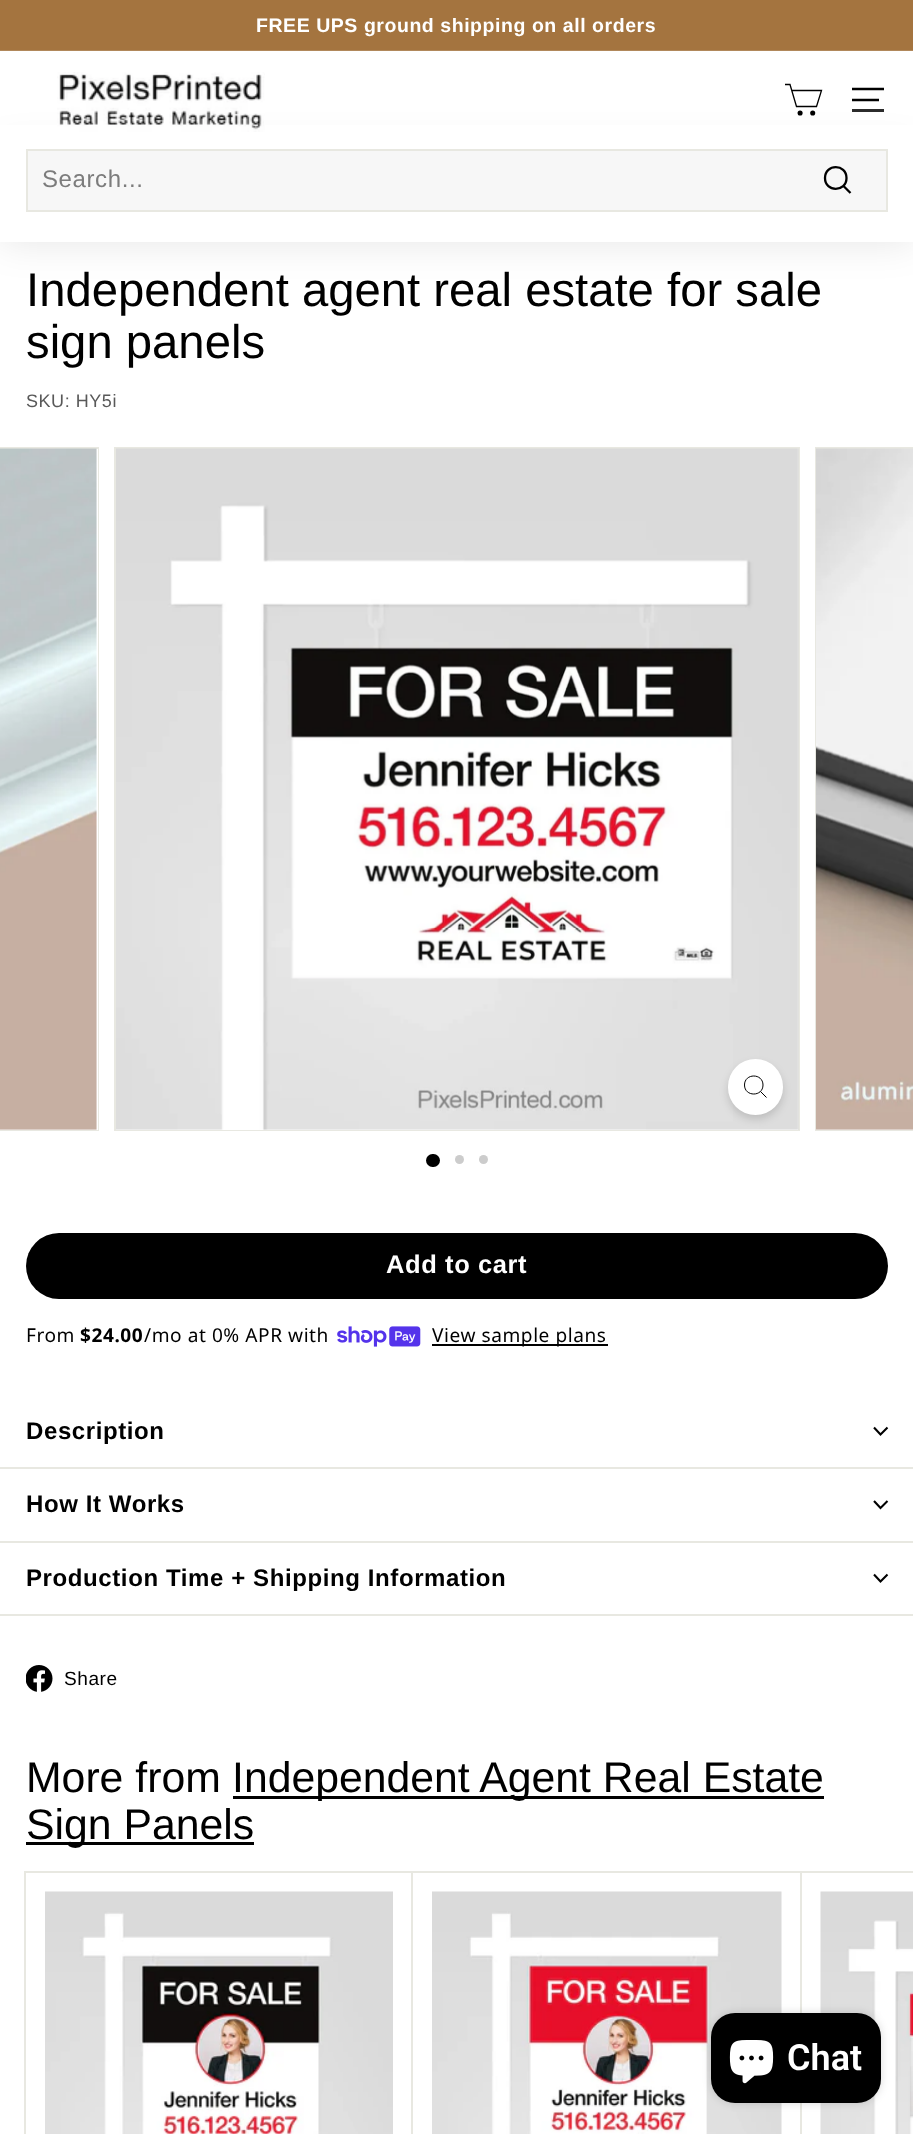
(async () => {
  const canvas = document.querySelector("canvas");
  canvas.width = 913;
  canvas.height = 2134;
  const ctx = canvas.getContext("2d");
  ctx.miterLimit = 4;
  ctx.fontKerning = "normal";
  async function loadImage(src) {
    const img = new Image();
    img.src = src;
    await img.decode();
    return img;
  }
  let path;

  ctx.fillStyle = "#ffffff";
  ctx.fillRect(0, 0, 913, 2134);
  ctx.fillStyle = "#a4743f";
  ctx.fillRect(0, 0, 913, 51);
  ctx.fillStyle = "rgba(255, 255, 255, 0.15)";
  ctx.fillRect(0, 50, 913, 1);
  ctx.fillStyle = "rgba(0, 0, 0, 0.1)";
  ctx.filter = "blur(19px)";
  ctx.beginPath();
  ctx.rect(0, 149, 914, 93);
  ctx.fill();
  ctx.filter = "none";
  ctx.fillStyle = "#ffffff";
  ctx.fillRect(0, 125, 913, 117);
  ctx.drawImage(await loadImage("img/1.png"), 57, 72, 208, 60);
  path = new Path2D("M792 90.5H821.5L816.5 106.5H796.5L790 84.5H785");
  ctx.strokeStyle = "#000000";
  ctx.lineWidth = 1.3;
  ctx.stroke(path);
  ctx.beginPath();
  ctx.arc(800.1, 113, 1.3, 0, Math.PI * 2);
  ctx.lineWidth = 2.5;
  ctx.stroke();
  ctx.beginPath();
  ctx.arc(812.7, 113, 1.3, 0, Math.PI * 2);
  ctx.stroke();
  path = new Path2D("M852 89H884M852 100H879");
  ctx.stroke(path);
  ctx.fillStyle = "#2b2b2b";
  ctx.fillRect(852, 109, 32, 3);
  ctx.fillStyle = "#f7f7f7";
  ctx.beginPath();
  ctx.rect(27, 150, 860, 61);
  ctx.fill();
  ctx.strokeStyle = "#e8e8e1";
  ctx.lineWidth = 2;
  ctx.stroke();
  path = new Path2D("M846.5 178C846.5 192.5 825 192.5 825 178C825 163.5 846.5 163.5 846.5 178ZM850.5 193L843.5 186");
  ctx.strokeStyle = "#000000";
  ctx.lineWidth = 2.3;
  ctx.stroke(path);
  ctx.strokeStyle = "#e8e8e1";
  ctx.lineWidth = 2;
  ctx.strokeRect(-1, 448, 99, 682);
  ctx.fillStyle = "#ffffff";
  ctx.fillRect(0, 449, 98, 681);
  ctx.drawImage(await loadImage("img/2.png"), 0, 448, 97, 682);
  ctx.strokeRect(115, 448, 684, 682);
  ctx.fillRect(116, 1129, 682, 1);
  ctx.drawImage(await loadImage("img/3.png"), 116, 448, 683, 682);
  ctx.fillStyle = "rgba(0, 0, 0, 0.15)";
  ctx.filter = "blur(4.5px)";
  ctx.beginPath();
  ctx.roundRect(728, 1064, 55, 55, 27.5);
  ctx.fill();
  ctx.filter = "none";
  ctx.fillStyle = "#ffffff";
  ctx.beginPath();
  ctx.roundRect(728, 1059, 55, 56, 27.5);
  ctx.fill();
  path = new Path2D("M763 1085C763 1097 744.5 1097 744.5 1085C744.5 1073 763 1073 763 1085ZM766.5 1097.5L760.5 1091.5");
  ctx.strokeStyle = "#000000";
  ctx.lineWidth = 1;
  ctx.stroke(path);
  ctx.strokeStyle = "#e8e8e1";
  ctx.lineWidth = 2;
  ctx.strokeRect(816, 448, 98, 682);
  ctx.fillRect(816, 1129, 97, 1);
  ctx.drawImage(await loadImage("img/4.png"), 816, 448, 97, 682);
  ctx.fillStyle = "#000000";
  ctx.beginPath();
  ctx.roundRect(426, 1154, 14, 13, 6.5);
  ctx.fill();
  ctx.fillStyle = "#cccccc";
  ctx.beginPath();
  ctx.arc(459.5, 1159.5, 4.5, 0, Math.PI * 2);
  ctx.fill();
  ctx.beginPath();
  ctx.arc(483.5, 1159.5, 4.5, 0, Math.PI * 2);
  ctx.fill();
  ctx.fillStyle = "#000000";
  ctx.beginPath();
  ctx.roundRect(26, 1233, 862, 66, 33);
  ctx.fill();
  ctx.drawImage(await loadImage("img/5.png"), 337, 1326, 84, 21);
  ctx.fillRect(432, 1344, 176, 2);
  ctx.fillStyle = "#e8e8e1";
  ctx.fillRect(0, 1467, 913, 2);
  path = new Path2D("M874 1427.5L880.5 1434.5L887.5 1427.5");
  ctx.strokeStyle = "#000000";
  ctx.lineWidth = 2.1;
  ctx.stroke(path);
  ctx.fillRect(0, 1541, 913, 2);
  path = new Path2D("M874 1501L880.5 1508L887.5 1501");
  ctx.stroke(path);
  ctx.fillRect(0, 1614, 913, 2);
  path = new Path2D("M874 1574.5L880.5 1581.5L887.5 1574.5");
  ctx.stroke(path);
  ctx.drawImage(await loadImage("img/6.png"), 26, 1665, 27, 27);
  ctx.fillStyle = "#000000";
  ctx.fillRect(233, 1796, 591, 3);
  ctx.fillRect(26, 1842, 228, 3);
  ctx.drawImage(await loadImage("img/7.png"), 45, 1891, 348, 243);
  ctx.strokeStyle = "#e8e8e1";
  ctx.lineWidth = 2;
  ctx.strokeRect(25, 1872, 388, 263);
  ctx.fillStyle = "#ffffff";
  ctx.fillRect(413, 1873, 1, 261);
  ctx.drawImage(await loadImage("img/8.png"), 432, 1891, 350, 243);
  ctx.strokeRect(412, 1872, 390, 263);
  ctx.fillRect(802, 1873, 1, 261);
  ctx.drawImage(await loadImage("img/9.png"), 820, 1891, 93, 243);
  ctx.strokeRect(801, 1872, 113, 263);
  ctx.fillStyle = "rgba(0, 0, 0, 0.15)";
  ctx.filter = "blur(4px)";
  ctx.beginPath();
  ctx.roundRect(711, 2013, 170, 90, 24);
  ctx.fill();
  ctx.filter = "none";
  ctx.fillStyle = "#000000";
  ctx.beginPath();
  ctx.roundRect(711, 2013, 170, 90, 24);
  ctx.fill();
  ctx.drawImage(await loadImage("img/10.png"), 729, 2040, 45, 44);
  ctx.letterSpacing = "0.55px";
  ctx.font = "bold 19.5px Liberation Sans";
  ctx.fillStyle = "#ffffff";
  ctx.fillText("FREE UPS ground shipping on all orders", 256, 32);
  ctx.letterSpacing = "0.6px";
  ctx.font = "24px Liberation Sans";
  ctx.fillStyle = "#7c7c7c";
  ctx.fillText("Search...", 42, 187);
  ctx.letterSpacing = "0px";
  ctx.font = "47.25px Liberation Sans";
  ctx.fillStyle = "#000000";
  ctx.fillText("Independent agent real estate for sale", 26, 306);
  ctx.fillText("sign panels", 26, 358);
  ctx.letterSpacing = "0.55px";
  ctx.font = "18px Liberation Sans";
  ctx.fillStyle = "#595959";
  ctx.fillText("SKU: HY5i", 26, 407);
  ctx.letterSpacing = "0.6px";
  ctx.font = "bold 25.5px Liberation Sans";
  ctx.fillStyle = "#ffffff";
  ctx.fillText("Add to cart", 386, 1273);
  ctx.letterSpacing = "0.55px";
  ctx.font = "19.1px Noto Sans";
  ctx.fillStyle = "#000000";
  ctx.fillText("From", 26, 1342);
  ctx.font = "bold 19.1px Noto Sans";
  ctx.fillText("$24.00", 80, 1342);
  ctx.font = "19.1px Noto Sans";
  ctx.fillText("/mo at 0% APR with", 144, 1342);
  ctx.fillText("View sample plans", 432, 1342);
  ctx.letterSpacing = "0.6px";
  ctx.font = "bold 24px Liberation Sans";
  for (const [text, x, y] of [
    ["Description", 26, 1439],
    ["How It Works", 26, 1512],
    ["Production Time + Shipping Information", 26, 1586],
  ]) {
    ctx.fillText(text, x, y);
  }
  ctx.letterSpacing = "0.55px";
  ctx.font = "19.1px Liberation Sans";
  ctx.fillText("Share", 64, 1685);
  ctx.letterSpacing = "0px";
  ctx.font = "42.75px Liberation Sans";
  for (const [text, x, y] of [
    ["More from", 26, 1792],
    ["Independent Agent Real Estate", 232, 1792],
    ["Sign Panels", 26, 1839],
  ]) {
    ctx.fillText(text, x, y);
  }
  ctx.font = "600 36px Roboto";
  ctx.fillStyle = "#ffffff";
  ctx.fillText("Chat", 787, 2070);
})();
